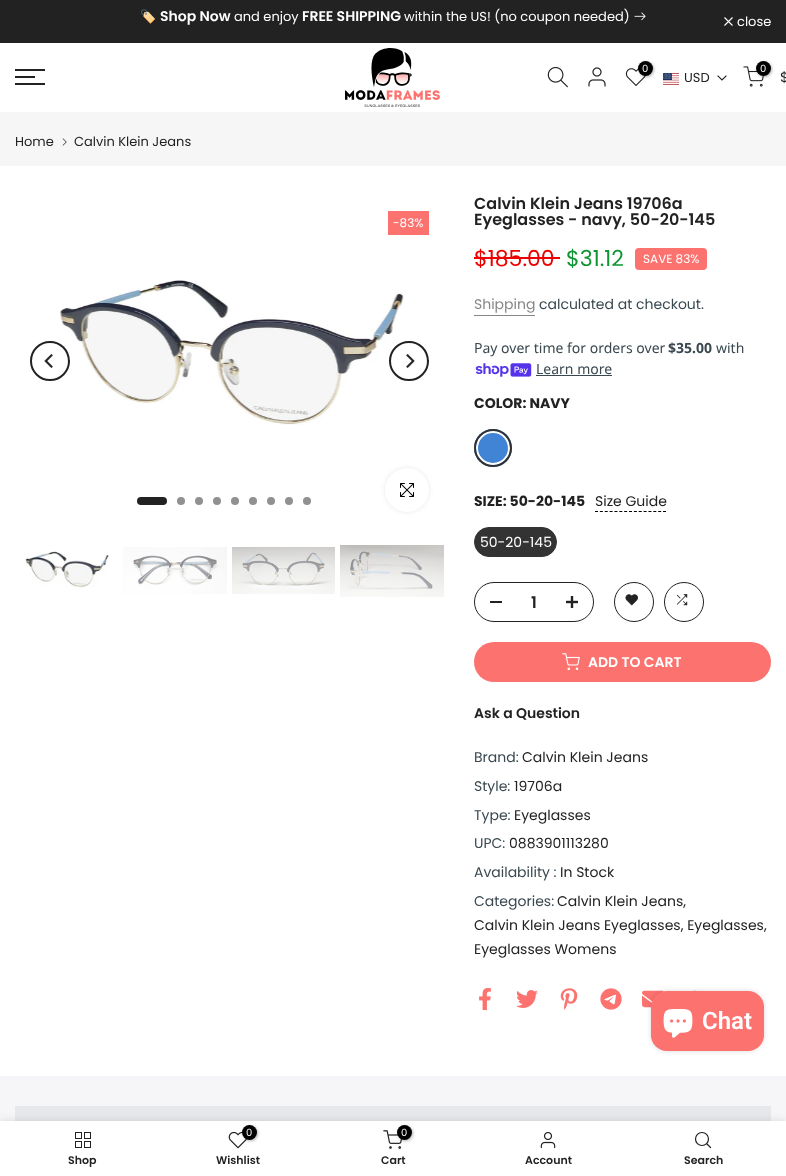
(async () => {
  const canvas = document.querySelector("canvas");
  canvas.width = 786;
  canvas.height = 1176;
  const ctx = canvas.getContext("2d");
  ctx.miterLimit = 4;
  ctx.fontKerning = "normal";
  async function loadImage(src) {
    const img = new Image();
    img.src = src;
    await img.decode();
    return img;
  }
  let path;

  ctx.fillStyle = "#ffffff";
  ctx.fillRect(0, 0, 786, 1176);
  ctx.fillStyle = "#222222";
  ctx.fillRect(0, 0, 786, 43);
  ctx.drawImage(await loadImage("img/1.png"), 634, 12, 12, 9);
  path = new Path2D("M732.5 17.5L724.5 25.5M732.5 25.5L724.5 17.5");
  ctx.strokeStyle = "#ffffff";
  ctx.lineWidth = 1.1;
  ctx.stroke(path);
  for (const [x, y, w, h, color] of [
    [15, 69, 30, 2, "#222222"],
    [15, 76, 20, 2, "#222222"],
    [15, 83, 30, 2, "#222222"],
  ]) {
    ctx.fillStyle = color;
    ctx.fillRect(x, y, w, h);
  }
  ctx.drawImage(await loadImage("img/2.png"), 345, 48, 95, 59);
  ctx.drawImage(await loadImage("img/3.png"), 547, 66, 21, 22);
  ctx.drawImage(await loadImage("img/4.png"), 588, 67, 18, 20);
  ctx.drawImage(await loadImage("img/5.png"), 625, 68, 21, 18);
  ctx.fillStyle = "rgba(0, 0, 0, 0.3)";
  ctx.filter = "blur(1.5px)";
  ctx.beginPath();
  ctx.roundRect(639, 62, 15, 15, 7.5);
  ctx.fill();
  ctx.filter = "none";
  ctx.fillStyle = "#000000";
  ctx.beginPath();
  ctx.arc(645.5, 68.5, 7.5, 0, Math.PI * 2);
  ctx.fill();
  ctx.drawImage(await loadImage("img/6.png"), 663, 73, 16, 12);
  path = new Path2D("M726 76L722 80L718 76");
  ctx.strokeStyle = "#222222";
  ctx.lineCap = "square";
  ctx.stroke(path);
  ctx.drawImage(await loadImage("img/7.png"), 743, 66, 21, 21);
  ctx.fillStyle = "rgba(0, 0, 0, 0.3)";
  ctx.filter = "blur(1.5px)";
  ctx.beginPath();
  ctx.roundRect(757, 62, 15, 15, 7.5);
  ctx.fill();
  ctx.filter = "none";
  ctx.fillStyle = "#000000";
  ctx.beginPath();
  ctx.arc(763.5, 68.5, 7.5, 0, Math.PI * 2);
  ctx.fill();
  ctx.fillStyle = "#f6f6f6";
  ctx.fillRect(0, 112, 786, 54);
  ctx.drawImage(await loadImage("img/8.png"), 62, 138, 5, 8);
  ctx.fillStyle = "#fc726f";
  ctx.fillRect(388, 211, 41, 24);
  ctx.drawImage(await loadImage("img/10.png"), 60, 280, 344, 145);
  ctx.beginPath();
  ctx.arc(50, 361, 19, 0, Math.PI * 2);
  ctx.lineWidth = 2;
  ctx.stroke();
  ctx.drawImage(await loadImage("img/9.png"), 44, 354, 9, 14);
  ctx.beginPath();
  ctx.arc(409, 361, 19, 0, Math.PI * 2);
  ctx.stroke();
  ctx.drawImage(await loadImage("img/11.png"), 406, 354, 9, 14);
  ctx.fillStyle = "#222222";
  ctx.beginPath();
  ctx.roundRect(137, 497, 30, 8, 4);
  ctx.fill();
  ctx.fillStyle = "#919191";
  ctx.beginPath();
  ctx.arc(181, 501, 4, 0, Math.PI * 2);
  ctx.fill();
  ctx.beginPath();
  ctx.arc(199, 501, 4, 0, Math.PI * 2);
  ctx.fill();
  ctx.beginPath();
  ctx.arc(217, 501, 4, 0, Math.PI * 2);
  ctx.fill();
  ctx.beginPath();
  ctx.arc(235, 501, 4, 0, Math.PI * 2);
  ctx.fill();
  ctx.beginPath();
  ctx.arc(253, 501, 4, 0, Math.PI * 2);
  ctx.fill();
  ctx.beginPath();
  ctx.arc(271, 501, 4, 0, Math.PI * 2);
  ctx.fill();
  ctx.beginPath();
  ctx.arc(289, 501, 4, 0, Math.PI * 2);
  ctx.fill();
  ctx.beginPath();
  ctx.arc(307, 501, 4, 0, Math.PI * 2);
  ctx.fill();
  ctx.fillStyle = "rgba(0, 0, 0, 0.09)";
  ctx.filter = "blur(2.5px)";
  ctx.beginPath();
  ctx.roundRect(385, 468, 44, 44, 22);
  ctx.fill();
  ctx.filter = "none";
  ctx.fillStyle = "#ffffff";
  ctx.beginPath();
  ctx.arc(407, 490, 22, 0, Math.PI * 2);
  ctx.fill();
  ctx.drawImage(await loadImage("img/12.png"), 400, 483, 14, 14);
  ctx.drawImage(await loadImage("img/13.png"), 25, 551, 84, 37);
  ctx.drawImage(await loadImage("img/14.png"), 123, 547, 104, 47);
  ctx.drawImage(await loadImage("img/15.png"), 232, 547, 103, 47);
  ctx.drawImage(await loadImage("img/16.png"), 340, 545, 104, 52);
  ctx.fillStyle = "#ec0101";
  ctx.fillRect(474, 257, 86, 2);
  ctx.fillStyle = "#fc726f";
  ctx.beginPath();
  ctx.roundRect(635, 248, 72, 22, 4);
  ctx.fill();
  ctx.fillStyle = "#878787";
  ctx.fillRect(474, 315, 61, 1);
  ctx.drawImage(await loadImage("img/17.png"), 475, 363, 57, 14);
  ctx.fillStyle = "#3a4850";
  ctx.fillRect(536, 375, 76, 1);
  ctx.fillStyle = "#4183d4";
  ctx.beginPath();
  ctx.arc(493, 448, 19, 0, Math.PI * 2);
  ctx.fill();
  ctx.beginPath();
  ctx.arc(493, 448, 16, 0, Math.PI * 2);
  ctx.strokeStyle = "#ffffff";
  ctx.stroke();
  ctx.beginPath();
  ctx.arc(493, 448, 18, 0, Math.PI * 2);
  ctx.strokeStyle = "#333333";
  ctx.stroke();
  path = new Path2D("M595 511.5H666");
  ctx.strokeStyle = "#000000";
  ctx.lineWidth = 1;
  ctx.lineCap = "butt";
  ctx.setLineDash([3, 1.86]);
  ctx.stroke(path);
  ctx.fillStyle = "#333333";
  ctx.beginPath();
  ctx.roundRect(474.5, 527.5, 82, 29, 14.5);
  ctx.fill();
  ctx.strokeStyle = "#333333";
  ctx.setLineDash([]);
  ctx.stroke();
  ctx.beginPath();
  ctx.roundRect(474.5, 582.5, 119, 39, 19.5);
  ctx.strokeStyle = "#222222";
  ctx.stroke();
  ctx.fillStyle = "#222222";
  ctx.fillRect(490, 601, 12, 2);
  ctx.drawImage(await loadImage("img/18.png"), 566, 596, 12, 12);
  ctx.beginPath();
  ctx.arc(634, 602, 19.5, 0, Math.PI * 2);
  ctx.stroke();
  ctx.drawImage(await loadImage("img/19.png"), 625, 594, 13, 12);
  ctx.beginPath();
  ctx.arc(684, 602, 19.5, 0, Math.PI * 2);
  ctx.stroke();
  ctx.drawImage(await loadImage("img/20.png"), 676, 594, 12, 12);
  ctx.fillStyle = "#fc726f";
  ctx.beginPath();
  ctx.roundRect(474, 642, 297, 40, 20);
  ctx.fill();
  ctx.drawImage(await loadImage("img/21.png"), 562, 653, 18, 18);
  ctx.drawImage(await loadImage("img/22.png"), 479, 988, 12, 22);
  ctx.drawImage(await loadImage("img/23.png"), 516, 990, 22, 18);
  ctx.drawImage(await loadImage("img/24.png"), 560, 988, 18, 22);
  ctx.drawImage(await loadImage("img/25.png"), 600, 988, 22, 22);
  ctx.drawImage(await loadImage("img/26.png"), 642, 990, 22, 18);
  ctx.drawImage(await loadImage("img/27.png"), 693, 990, 4, 1);
  ctx.fillStyle = "#f6f6f8";
  ctx.fillRect(0, 1076, 786, 45);
  ctx.fillStyle = "#e7e8eb";
  ctx.fillRect(15, 1106, 756, 15);
  ctx.fillStyle = "rgba(0, 0, 0, 0.15)";
  ctx.filter = "blur(2.5px)";
  ctx.beginPath();
  ctx.roundRect(651, 991, 113, 60, 16);
  ctx.fill();
  ctx.filter = "none";
  ctx.fillStyle = "#fc726f";
  ctx.beginPath();
  ctx.roundRect(651, 991, 113, 60, 16);
  ctx.fill();
  ctx.drawImage(await loadImage("img/28.png"), 663, 1009, 30, 29);
  ctx.fillStyle = "rgba(0, 0, 0, 0.12)";
  ctx.filter = "blur(4.5px)";
  ctx.beginPath();
  ctx.rect(0, 1121, 786, 55);
  ctx.fill();
  ctx.filter = "none";
  ctx.fillStyle = "#ffffff";
  ctx.fillRect(0, 1121, 786, 55);
  ctx.drawImage(await loadImage("img/29.png"), 75, 1132, 16, 16);
  ctx.drawImage(await loadImage("img/30.png"), 228, 1131, 19, 18);
  ctx.fillStyle = "rgba(0, 0, 0, 0.3)";
  ctx.filter = "blur(1.5px)";
  ctx.beginPath();
  ctx.roundRect(243, 1126, 15, 15, 7.5);
  ctx.fill();
  ctx.filter = "none";
  ctx.fillStyle = "#000000";
  ctx.beginPath();
  ctx.arc(249.5, 1132.5, 7.5, 0, Math.PI * 2);
  ctx.fill();
  ctx.drawImage(await loadImage("img/31.png"), 383, 1130, 19, 19);
  ctx.fillStyle = "rgba(0, 0, 0, 0.3)";
  ctx.filter = "blur(1.5px)";
  ctx.beginPath();
  ctx.roundRect(398, 1126, 15, 15, 7.5);
  ctx.fill();
  ctx.filter = "none";
  ctx.fillStyle = "#000000";
  ctx.beginPath();
  ctx.arc(404.5, 1132.5, 7.5, 0, Math.PI * 2);
  ctx.fill();
  ctx.drawImage(await loadImage("img/32.png"), 540, 1131, 16, 18);
  ctx.beginPath();
  ctx.arc(702, 1139, 6.5, 0, Math.PI * 2);
  ctx.lineWidth = 1.2;
  ctx.stroke();
  path = new Path2D("M710.5 1147.5L707 1144");
  ctx.lineCap = "round";
  ctx.lineJoin = "round";
  ctx.stroke(path);
  ctx.font = "13px Noto Color Emoji";
  ctx.fillStyle = "#ffffff";
  ctx.fillText("🏷️", 140, 21);
  ctx.font = "600 14px Poppins";
  ctx.fillText("Shop Now", 160, 21);
  ctx.font = "13px Poppins";
  ctx.fillText("and enjoy", 234, 21);
  ctx.font = "600 14px Poppins";
  ctx.fillText("FREE SHIPPING", 302, 21);
  ctx.font = "13px Poppins";
  ctx.fillText("within the US! (no coupon needed)", 404, 21);
  ctx.fillText("close", 737, 26);
  ctx.font = "10px Poppins";
  ctx.fillText("0", 642, 72);
  ctx.font = "13px Poppins";
  ctx.fillStyle = "#222222";
  ctx.fillText("USD", 684, 82);
  ctx.font = "10px Poppins";
  ctx.fillStyle = "#ffffff";
  ctx.fillText("0", 760, 72);
  ctx.font = "14px Poppins";
  ctx.fillStyle = "#222222";
  ctx.fillText("$", 780, 82);
  ctx.font = "13px Poppins";
  ctx.fillText("Home", 15, 146);
  ctx.fillText("Calvin Klein Jeans", 74, 146);
  ctx.font = "12px Poppins";
  ctx.fillStyle = "#ffffff";
  ctx.fillText("-83%", 393, 227);
  ctx.font = "600 16px Poppins";
  ctx.fillStyle = "#222222";
  ctx.fillText("Calvin Klein Jeans 19706a", 474, 209);
  ctx.fillText("Eyeglasses - navy, 50-20-145", 474, 225);
  ctx.font = "22px Poppins";
  ctx.fillStyle = "#ec0101";
  ctx.fillText("$185.00", 474, 266);
  ctx.fillStyle = "#109533";
  ctx.fillText("$31.12", 566, 266);
  ctx.font = "12px Poppins";
  ctx.fillStyle = "#ffffff";
  ctx.fillText("SAVE 83%", 643, 263);
  ctx.font = "14px Poppins";
  ctx.fillStyle = "#878787";
  ctx.fillText("Shipping", 474, 309);
  ctx.fillStyle = "#3a4850";
  ctx.fillText("calculated at checkout.", 539, 309);
  ctx.font = "14px Noto Sans";
  ctx.fillText("Pay over time for orders over", 474, 353);
  ctx.font = "bold 14px Noto Sans";
  ctx.fillText("$35.00", 668, 353);
  ctx.font = "14px Noto Sans";
  ctx.fillText("with", 716, 353);
  ctx.fillText("Learn more", 536, 374);
  ctx.font = "bold 14px Poppins";
  ctx.fillStyle = "#222222";
  ctx.fillText("COLOR: NAVY", 474, 408);
  ctx.fillText("SIZE: 50-20-145", 474, 506);
  ctx.font = "14px Poppins";
  ctx.fillText("Size Guide", 595, 506);
  ctx.fillStyle = "#ffffff";
  ctx.fillText("50-20-145", 480, 547);
  ctx.font = "600 16px Poppins";
  ctx.fillStyle = "#222222";
  ctx.fillText("1", 531, 608);
  ctx.font = "600 14px Poppins";
  ctx.fillStyle = "#ffffff";
  ctx.fillText("ADD TO CART", 588, 667);
  ctx.fillStyle = "#222222";
  ctx.fillText("Ask a Question", 474, 718);
  ctx.font = "14px Poppins";
  ctx.fillStyle = "#3a4850";
  ctx.fillText("Brand:", 474, 762);
  ctx.fillStyle = "#222222";
  ctx.fillText("Calvin Klein Jeans", 522, 762);
  ctx.fillStyle = "#3a4850";
  ctx.fillText("Style:", 474, 791);
  ctx.fillStyle = "#222222";
  ctx.fillText("19706a", 514, 791);
  ctx.fillStyle = "#3a4850";
  ctx.fillText("Type:", 474, 820);
  ctx.fillStyle = "#222222";
  ctx.fillText("Eyeglasses", 514, 820);
  ctx.fillStyle = "#3a4850";
  ctx.fillText("UPC:", 474, 848);
  ctx.fillStyle = "#222222";
  ctx.fillText("0883901113280", 509, 848);
  ctx.fillStyle = "#3a4850";
  ctx.fillText("Availability :", 474, 877);
  ctx.fillStyle = "#222222";
  ctx.fillText("In Stock", 560, 877);
  ctx.fillStyle = "#3a4850";
  ctx.fillText("Categories:", 474, 906);
  ctx.fillStyle = "#222222";
  for (const [text, x, y] of [
    ["Calvin Klein Jeans,", 557, 906],
    ["Calvin Klein Jeans Eyeglasses, Eyeglasses,", 474, 930],
    ["Eyeglasses Womens", 474, 954],
  ]) {
    ctx.fillText(text, x, y);
  }
  ctx.font = "600 24px Roboto";
  ctx.fillStyle = "#ffffff";
  ctx.fillText("Chat", 702, 1029);
  ctx.font = "600 11px Poppins";
  ctx.fillStyle = "#222222";
  ctx.fillText("Shop", 68, 1164);
  ctx.font = "10px Poppins";
  ctx.fillStyle = "#ffffff";
  ctx.fillText("0", 246, 1136);
  ctx.font = "600 11px Poppins";
  ctx.fillStyle = "#222222";
  ctx.fillText("Wishlist", 216, 1164);
  ctx.font = "10px Poppins";
  ctx.fillStyle = "#ffffff";
  ctx.fillText("0", 401, 1136);
  ctx.font = "600 11px Poppins";
  ctx.fillStyle = "#222222";
  for (const [text, x, y] of [
    ["Cart", 381, 1164],
    ["Account", 525, 1164],
    ["Search", 684, 1164],
  ]) {
    ctx.fillText(text, x, y);
  }
})();
